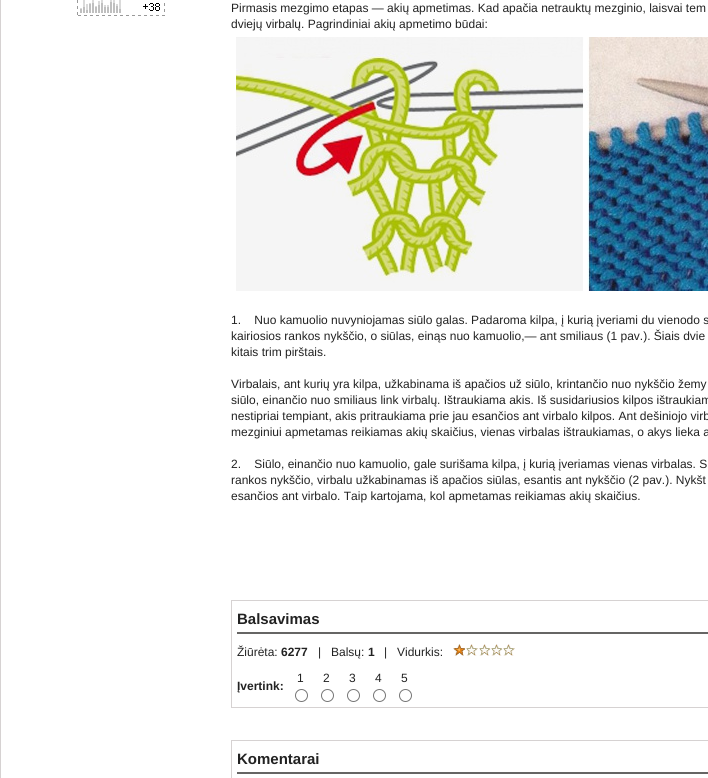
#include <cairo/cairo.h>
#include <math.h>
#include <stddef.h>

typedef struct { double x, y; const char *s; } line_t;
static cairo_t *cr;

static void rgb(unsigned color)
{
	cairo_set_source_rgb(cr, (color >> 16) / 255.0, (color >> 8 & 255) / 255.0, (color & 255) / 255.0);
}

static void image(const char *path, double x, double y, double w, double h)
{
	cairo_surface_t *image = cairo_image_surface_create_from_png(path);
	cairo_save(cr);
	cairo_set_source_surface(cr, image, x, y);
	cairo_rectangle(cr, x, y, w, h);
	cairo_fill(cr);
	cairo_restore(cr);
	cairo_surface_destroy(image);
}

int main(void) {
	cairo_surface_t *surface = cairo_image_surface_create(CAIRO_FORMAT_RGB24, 708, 778);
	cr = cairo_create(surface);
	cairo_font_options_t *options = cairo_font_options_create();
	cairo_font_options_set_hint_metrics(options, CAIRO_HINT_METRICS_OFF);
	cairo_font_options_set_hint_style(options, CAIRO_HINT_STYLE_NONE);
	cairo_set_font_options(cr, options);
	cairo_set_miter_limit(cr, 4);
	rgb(0xffffff);
	cairo_paint(cr);
	rgb(0xd6d2d2);
	cairo_rectangle(cr, 0, 0, 1, 778);
	cairo_fill(cr);
	image("img/1.png", 77, 0, 88, 16);
	image("img/2.png", 236, 37, 472, 254);
	cairo_rectangle(cr, 231.5, 600.5, 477, 107);
	cairo_set_line_width(cr, 1);
	cairo_stroke(cr);
	rgb(0x666564);
	cairo_rectangle(cr, 237, 632, 471, 2);
	cairo_fill(cr);
	image("img/3.png", 453, 644, 62, 12);
	cairo_arc(cr, 301.5, 695.5, 6, 0, 2 * M_PI);
	rgb(0x767676);
	cairo_stroke(cr);
	cairo_arc(cr, 327.5, 695.5, 6, 0, 2 * M_PI);
	cairo_stroke(cr);
	cairo_arc(cr, 353.5, 695.5, 6, 0, 2 * M_PI);
	cairo_stroke(cr);
	cairo_arc(cr, 379.5, 695.5, 6, 0, 2 * M_PI);
	cairo_stroke(cr);
	cairo_arc(cr, 405.5, 695.5, 6, 0, 2 * M_PI);
	cairo_stroke(cr);
	cairo_rectangle(cr, 231.5, 740.5, 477, 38);
	rgb(0xd6d2d2);
	cairo_stroke(cr);
	rgb(0x666564);
	cairo_rectangle(cr, 237, 772, 471, 2);
	cairo_fill(cr);
	cairo_select_font_face(cr, "Liberation Sans", CAIRO_FONT_SLANT_NORMAL, CAIRO_FONT_WEIGHT_NORMAL);
	cairo_set_font_size(cr, 12);
	rgb(0x222222);
	{
		static const line_t items[] = {
			{231, 12, "Pirmasis mezgimo etapas — akių apmetimas. Kad apačia netrauktų mezginio, laisvai tem"},
			{231, 28, "dviejų virbalų. Pagrindiniai akių apmetimo būdai:"},
			{231, 324, "1.    Nuo kamuolio nuvyniojamas siūlo galas. Padaroma kilpa, į kurią įveriami du vienodo s"},
			{231, 340, "kairiosios rankos nykščio, o siūlas, einąs nuo kamuolio,— ant smiliaus (1 pav.). Šiais dvie"},
			{231, 356, "kitais trim pirštais."},
			{231, 388, "Virbalais, ant kurių yra kilpa, užkabinama iš apačios už siūlo, krintančio nuo nykščio žemy"},
			{231, 404, "siūlo, einančio nuo smiliaus link virbalų. Ištraukiama akis. Iš susidariusios kilpos ištraukiam"},
			{231, 420, "nestipriai tempiant, akis pritraukiama prie jau esančios ant virbalo kilpos. Ant dešiniojo virb"},
			{231, 436, "mezginiui apmetamas reikiamas akių skaičius, vienas virbalas ištraukiamas, o akys lieka a"},
			{231, 468, "2.    Siūlo, einančio nuo kamuolio, gale surišama kilpa, į kurią įveriamas vienas virbalas. S"},
			{231, 484, "rankos nykščio, virbalu užkabinamas iš apačios siūlas, esantis ant nykščio (2 pav.). Nykšt"},
			{231, 500, "esančios ant virbalo. Taip kartojama, kol apmetamas reikiamas akių skaičius."},
		};
		for (size_t i = 0; i < sizeof items / sizeof *items; i++) {
			cairo_move_to(cr, items[i].x, items[i].y);
			cairo_show_text(cr, items[i].s);
		}
	}
	cairo_select_font_face(cr, "Liberation Sans", CAIRO_FONT_SLANT_NORMAL, CAIRO_FONT_WEIGHT_BOLD);
	cairo_set_font_size(cr, 15);
	cairo_move_to(cr, 237, 624);
	cairo_show_text(cr, "Balsavimas");
	cairo_select_font_face(cr, "Liberation Sans", CAIRO_FONT_SLANT_NORMAL, CAIRO_FONT_WEIGHT_NORMAL);
	cairo_set_font_size(cr, 12);
	cairo_move_to(cr, 237, 656);
	cairo_show_text(cr, "Žiūrėta:");
	cairo_select_font_face(cr, "Liberation Sans", CAIRO_FONT_SLANT_NORMAL, CAIRO_FONT_WEIGHT_BOLD);
	cairo_move_to(cr, 281, 656);
	cairo_show_text(cr, "6277");
	cairo_select_font_face(cr, "Liberation Sans", CAIRO_FONT_SLANT_NORMAL, CAIRO_FONT_WEIGHT_NORMAL);
	cairo_move_to(cr, 318, 656);
	cairo_show_text(cr, "|");
	cairo_move_to(cr, 331, 656);
	cairo_show_text(cr, "Balsų:");
	cairo_select_font_face(cr, "Liberation Sans", CAIRO_FONT_SLANT_NORMAL, CAIRO_FONT_WEIGHT_BOLD);
	cairo_move_to(cr, 368, 656);
	cairo_show_text(cr, "1");
	cairo_select_font_face(cr, "Liberation Sans", CAIRO_FONT_SLANT_NORMAL, CAIRO_FONT_WEIGHT_NORMAL);
	{
		static const line_t items[] = {
			{384, 656, "|"},
			{397, 656, "Vidurkis:"},
			{297, 682, "1"},
			{323, 682, "2"},
			{349, 682, "3"},
			{375, 682, "4"},
			{401, 682, "5"},
		};
		for (size_t i = 0; i < sizeof items / sizeof *items; i++) {
			cairo_move_to(cr, items[i].x, items[i].y);
			cairo_show_text(cr, items[i].s);
		}
	}
	cairo_select_font_face(cr, "Liberation Sans", CAIRO_FONT_SLANT_NORMAL, CAIRO_FONT_WEIGHT_BOLD);
	cairo_move_to(cr, 237, 690);
	cairo_show_text(cr, "Įvertink:");
	cairo_set_font_size(cr, 15);
	cairo_move_to(cr, 237, 764);
	cairo_show_text(cr, "Komentarai");
	cairo_surface_write_to_png(surface, "page.png");
	cairo_font_options_destroy(options);
	cairo_destroy(cr);
	cairo_surface_destroy(surface);
	return 0;
}
